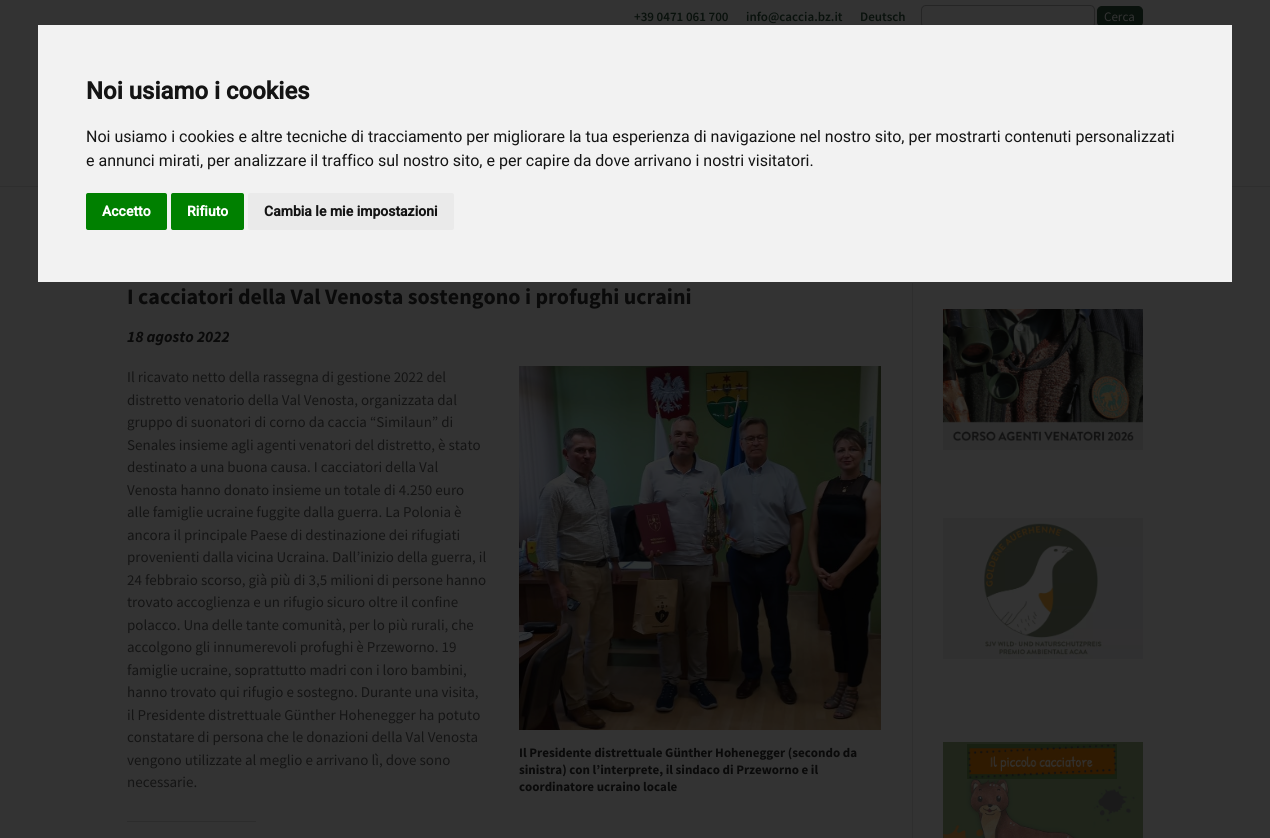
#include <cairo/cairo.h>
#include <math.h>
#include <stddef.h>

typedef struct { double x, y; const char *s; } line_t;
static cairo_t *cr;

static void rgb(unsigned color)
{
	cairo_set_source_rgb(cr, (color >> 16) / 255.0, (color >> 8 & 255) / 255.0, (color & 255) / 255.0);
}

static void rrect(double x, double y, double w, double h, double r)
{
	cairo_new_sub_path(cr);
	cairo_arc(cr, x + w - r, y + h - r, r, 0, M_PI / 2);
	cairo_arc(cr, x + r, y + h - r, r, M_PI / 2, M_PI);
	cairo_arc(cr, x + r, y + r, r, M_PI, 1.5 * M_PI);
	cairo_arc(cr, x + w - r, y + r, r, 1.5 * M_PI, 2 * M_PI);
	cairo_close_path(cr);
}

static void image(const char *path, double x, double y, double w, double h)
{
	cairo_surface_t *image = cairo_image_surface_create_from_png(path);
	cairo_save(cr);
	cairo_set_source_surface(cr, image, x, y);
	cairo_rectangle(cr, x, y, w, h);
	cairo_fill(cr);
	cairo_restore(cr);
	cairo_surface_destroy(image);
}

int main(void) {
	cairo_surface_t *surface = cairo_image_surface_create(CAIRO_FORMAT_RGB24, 1270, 838);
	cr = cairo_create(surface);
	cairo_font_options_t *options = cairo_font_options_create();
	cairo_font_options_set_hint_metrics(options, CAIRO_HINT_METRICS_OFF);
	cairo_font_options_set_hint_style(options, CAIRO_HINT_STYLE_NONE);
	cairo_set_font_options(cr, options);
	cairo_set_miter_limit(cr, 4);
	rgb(0x333333);
	cairo_paint(cr);
	rrect(921.5, 5.5, 173, 22, 4.5);
	rgb(0x252525);
	cairo_set_line_width(cr, 1);
	cairo_stroke(cr);
	rgb(0x09110c);
	rrect(1097.5, 6.5, 45, 20, 4.5);
	cairo_fill_preserve(cr);
	cairo_stroke(cr);
	rgb(0x2e2e2e);
	cairo_rectangle(cr, 0, 186, 1270, 1);
	cairo_fill(cr);
	image("img/1.png", 519, 366, 362, 364);
	rgb(0x2c2c2c);
	cairo_rectangle(cr, 127, 821, 129, 1);
	cairo_fill(cr);
	rgb(0x2e2e2e);
	cairo_rectangle(cr, 912, 283, 1, 555);
	cairo_fill(cr);
	image("img/2.png", 943, 309, 200, 141);
	image("img/3.png", 943, 518, 200, 141);
	image("img/4.png", 943, 742, 200, 96);
	image("img/5.png", 967, 744, 150, 35);
	rgb(0xf2f2f2);
	cairo_rectangle(cr, 38, 25, 1194, 257);
	cairo_fill(cr);
	rgb(0x008000);
	rrect(86, 193, 81, 37, 2);
	cairo_fill(cr);
	rrect(171, 193, 73, 37, 2);
	cairo_fill(cr);
	rgb(0xeaeaea);
	rrect(248, 193, 206, 37, 2);
	cairo_fill(cr);
	cairo_select_font_face(cr, "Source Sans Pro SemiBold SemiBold", CAIRO_FONT_SLANT_NORMAL, CAIRO_FONT_WEIGHT_NORMAL);
	cairo_set_font_size(cr, 13);
	rgb(0x09110c);
	{
		static const line_t items[] = {
			{634, 21, "+39 0471 061 700"},
			{746, 21, "info@caccia.bz.it"},
			{860, 21, "Deutsch"},
		};
		for (size_t i = 0; i < sizeof items / sizeof *items; i++) {
			cairo_move_to(cr, items[i].x, items[i].y);
			cairo_show_text(cr, items[i].s);
		}
	}
	cairo_select_font_face(cr, "Source Sans Pro", CAIRO_FONT_SLANT_NORMAL, CAIRO_FONT_WEIGHT_NORMAL);
	rgb(0x333333);
	cairo_move_to(cr, 1104, 21);
	cairo_show_text(cr, "Cerca");
	cairo_select_font_face(cr, "Source Sans Pro", CAIRO_FONT_SLANT_NORMAL, CAIRO_FONT_WEIGHT_BOLD);
	cairo_set_font_size(cr, 22);
	rgb(0x0a0a0a);
	cairo_move_to(cr, 127, 304);
	cairo_show_text(cr, "I cacciatori della Val Venosta sostengono i profughi ucraini");
	cairo_select_font_face(cr, "Source Sans Pro", CAIRO_FONT_SLANT_ITALIC, CAIRO_FONT_WEIGHT_BOLD);
	cairo_set_font_size(cr, 16);
	cairo_move_to(cr, 127, 342);
	cairo_show_text(cr, "18 agosto 2022");
	cairo_select_font_face(cr, "Source Sans Pro", CAIRO_FONT_SLANT_NORMAL, CAIRO_FONT_WEIGHT_NORMAL);
	cairo_set_font_size(cr, 15);
	rgb(0x141414);
	{
		static const line_t items[] = {
			{127, 382, "Il ricavato netto della rassegna di gestione 2022 del"},
			{127, 405, "distretto venatorio della Val Venosta, organizzata dal"},
			{127, 427, "gruppo di suonatori di corno da caccia “Similaun” di"},
			{127, 450, "Senales insieme agli agenti venatori del distretto, è stato"},
			{127, 472, "destinato a una buona causa. I cacciatori della Val"},
			{127, 495, "Venosta hanno donato insieme un totale di 4.250 euro"},
			{127, 517, "alle famiglie ucraine fuggite dalla guerra. La Polonia è"},
			{127, 540, "ancora il principale Paese di destinazione dei rifugiati"},
			{127, 562, "provenienti dalla vicina Ucraina. Dall’inizio della guerra, il"},
			{127, 585, "24 febbraio scorso, già più di 3,5 milioni di persone hanno"},
			{127, 607, "trovato accoglienza e un rifugio sicuro oltre il confine"},
			{127, 630, "polacco. Una delle tante comunità, per lo più rurali, che"},
			{127, 652, "accolgono gli innumerevoli profughi è Przeworno. 19"},
			{127, 675, "famiglie ucraine, soprattutto madri con i loro bambini,"},
			{127, 697, "hanno trovato qui rifugio e sostegno. Durante una visita,"},
			{127, 720, "il Presidente distrettuale Günther Hohenegger ha potuto"},
			{127, 742, "constatare di persona che le donazioni della Val Venosta"},
			{127, 765, "vengono utilizzate al meglio e arrivano lì, dove sono"},
			{127, 787, "necessarie."},
		};
		for (size_t i = 0; i < sizeof items / sizeof *items; i++) {
			cairo_move_to(cr, items[i].x, items[i].y);
			cairo_show_text(cr, items[i].s);
		}
	}
	cairo_select_font_face(cr, "Source Sans Pro", CAIRO_FONT_SLANT_NORMAL, CAIRO_FONT_WEIGHT_BOLD);
	cairo_set_font_size(cr, 13);
	rgb(0x0a0a0a);
	{
		static const line_t items[] = {
			{519, 757, "Il Presidente distrettuale Günther Hohenegger (secondo da"},
			{519, 774, "sinistra) con l’interprete, il sindaco di Przeworno e il"},
			{519, 791, "coordinatore ucraino locale"},
		};
		for (size_t i = 0; i < sizeof items / sizeof *items; i++) {
			cairo_move_to(cr, items[i].x, items[i].y);
			cairo_show_text(cr, items[i].s);
		}
	}
	cairo_select_font_face(cr, "Roboto", CAIRO_FONT_SLANT_NORMAL, CAIRO_FONT_WEIGHT_BOLD);
	cairo_set_font_size(cr, 24);
	rgb(0x141414);
	cairo_move_to(cr, 86, 99);
	cairo_show_text(cr, "Noi usiamo i cookies");
	cairo_select_font_face(cr, "Roboto", CAIRO_FONT_SLANT_NORMAL, CAIRO_FONT_WEIGHT_NORMAL);
	cairo_set_font_size(cr, 16);
	cairo_move_to(cr, 86, 142);
	cairo_show_text(cr, "Noi usiamo i cookies e altre tecniche di tracciamento per migliorare la tua esperienza di navigazione nel nostro sito, per mostrarti contenuti personalizzati");
	cairo_move_to(cr, 86, 166);
	cairo_show_text(cr, "e annunci mirati, per analizzare il traffico sul nostro sito, e per capire da dove arrivano i nostri visitatori.");
	cairo_select_font_face(cr, "Roboto", CAIRO_FONT_SLANT_NORMAL, CAIRO_FONT_WEIGHT_BOLD);
	cairo_set_font_size(cr, 14);
	rgb(0xffffff);
	cairo_move_to(cr, 102, 216);
	cairo_show_text(cr, "Accetto");
	cairo_move_to(cr, 187, 216);
	cairo_show_text(cr, "Rifiuto");
	rgb(0x141414);
	cairo_move_to(cr, 264, 216);
	cairo_show_text(cr, "Cambia le mie impostazioni");
	cairo_surface_write_to_png(surface, "page.png");
	cairo_font_options_destroy(options);
	cairo_destroy(cr);
	cairo_surface_destroy(surface);
	return 0;
}
